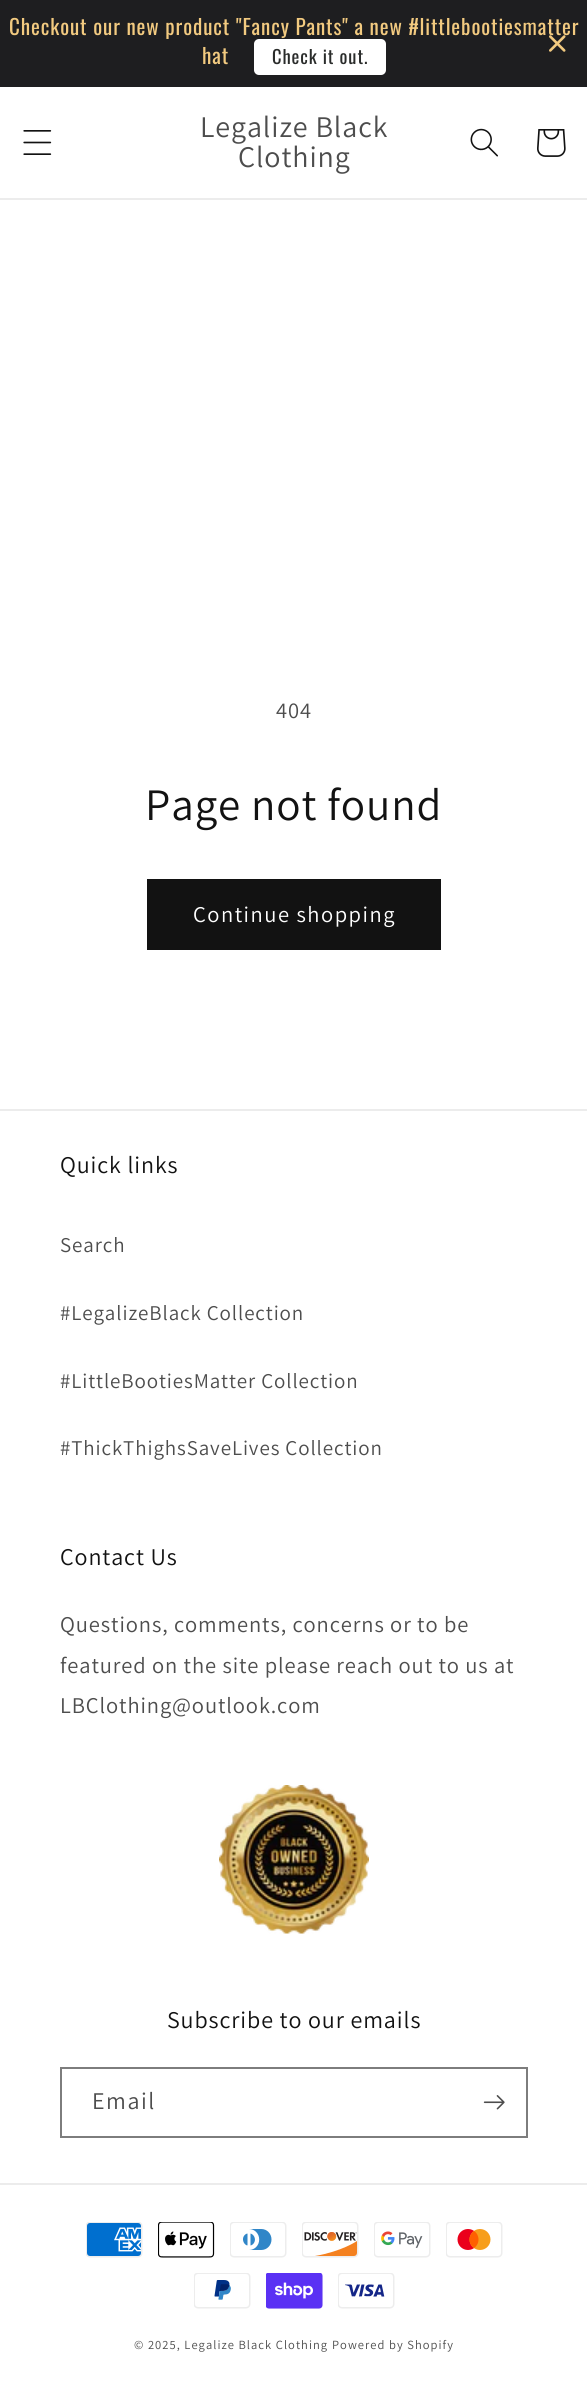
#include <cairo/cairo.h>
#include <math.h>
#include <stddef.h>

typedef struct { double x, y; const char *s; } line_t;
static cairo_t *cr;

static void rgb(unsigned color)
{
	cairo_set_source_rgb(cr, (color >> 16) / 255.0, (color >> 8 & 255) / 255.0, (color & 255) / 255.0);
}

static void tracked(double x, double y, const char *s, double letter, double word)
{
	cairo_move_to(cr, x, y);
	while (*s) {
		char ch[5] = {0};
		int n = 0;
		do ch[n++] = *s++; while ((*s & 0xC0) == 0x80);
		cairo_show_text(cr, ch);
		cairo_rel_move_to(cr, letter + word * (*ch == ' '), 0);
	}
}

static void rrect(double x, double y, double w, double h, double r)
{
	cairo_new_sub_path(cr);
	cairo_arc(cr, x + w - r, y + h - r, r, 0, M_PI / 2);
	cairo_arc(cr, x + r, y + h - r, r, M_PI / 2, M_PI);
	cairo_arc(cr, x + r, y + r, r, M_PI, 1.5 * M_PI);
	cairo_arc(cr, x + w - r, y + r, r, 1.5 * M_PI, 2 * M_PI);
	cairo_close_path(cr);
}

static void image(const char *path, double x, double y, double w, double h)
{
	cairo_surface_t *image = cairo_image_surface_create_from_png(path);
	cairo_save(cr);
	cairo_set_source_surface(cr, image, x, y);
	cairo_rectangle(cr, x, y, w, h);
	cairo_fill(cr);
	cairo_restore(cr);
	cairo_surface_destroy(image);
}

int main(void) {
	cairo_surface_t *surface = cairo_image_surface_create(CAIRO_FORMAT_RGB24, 587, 2397);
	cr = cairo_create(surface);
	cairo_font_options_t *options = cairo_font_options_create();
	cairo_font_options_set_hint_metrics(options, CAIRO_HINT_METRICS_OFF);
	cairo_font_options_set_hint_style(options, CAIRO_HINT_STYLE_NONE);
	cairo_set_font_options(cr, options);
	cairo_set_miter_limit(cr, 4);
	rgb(0xffffff);
	cairo_paint(cr);
	rgb(0x1e1e20);
	cairo_rectangle(cr, 0, 0, 587, 87);
	cairo_fill(cr);
	rgb(0xffffff);
	rrect(254, 39, 132, 36, 5);
	cairo_fill(cr);
	rgb(0xececec);
	cairo_rectangle(cr, 0, 198, 587, 2);
	cairo_fill(cr);
	image("img/2.png", 23, 130, 29, 25);
	image("img/3.png", 470, 128, 28, 29);
	image("img/4.png", 537, 129, 29, 28);
	rgb(0x121212);
	cairo_rectangle(cr, 147, 879, 294, 71);
	cairo_fill(cr);
	rgb(0xececec);
	cairo_rectangle(cr, 0, 1109, 587, 2);
	cairo_fill(cr);
	image("img/5.png", 219, 1785, 150, 149);
	cairo_rectangle(cr, 61, 2068, 466, 69);
	rgb(0x7d7d7d);
	cairo_stroke(cr);
	image("img/6.png", 483, 2095, 22, 15);
	rgb(0xececec);
	cairo_rectangle(cr, 0, 2183, 587, 2);
	cairo_fill(cr);
	image("img/7.png", 86, 2222, 57, 36);
	image("img/8.png", 158, 2222, 57, 36);
	image("img/9.png", 230, 2222, 57, 36);
	image("img/10.png", 302, 2222, 57, 36);
	image("img/11.png", 374, 2222, 57, 36);
	image("img/12.png", 446, 2222, 57, 36);
	image("img/13.png", 194, 2273, 57, 36);
	image("img/14.png", 266, 2273, 57, 36);
	image("img/15.png", 338, 2273, 57, 36);
	cairo_select_font_face(cr, "Oswald", CAIRO_FONT_SLANT_NORMAL, CAIRO_FONT_WEIGHT_NORMAL);
	cairo_set_font_size(cr, 21);
	rgb(0xf2ca80);
	tracked(9, 35, "Checkout our new product \"Fancy Pants\" a new #littlebootiesmatter", 0.9, 0);
	tracked(202, 64, "hat", 0.9, 0);
	cairo_set_font_size(cr, 18.5);
	rgb(0x2a2c2b);
	tracked(272, 64, "Check it out.", 0.9, 0);
	image("img/1.png", 549, 35, 17, 17);
	cairo_select_font_face(cr, "Assistant", CAIRO_FONT_SLANT_NORMAL, CAIRO_FONT_WEIGHT_NORMAL);
	cairo_set_font_size(cr, 30);
	rgb(0x4d4d4d);
	tracked(200, 137, "Legalize Black", 0.9, 0);
	tracked(238, 167, "Clothing", 0.9, 0);
	cairo_set_font_size(cr, 22.5);
	tracked(276, 718, "404", 0.9, 0);
	cairo_set_font_size(cr, 45);
	rgb(0x121212);
	tracked(145, 820, "Page not found", 0.9, 0);
	cairo_set_font_size(cr, 22.5);
	rgb(0xffffff);
	tracked(193, 922, "Continue shopping", 1.5, 0);
	cairo_set_font_size(cr, 24);
	rgb(0x121212);
	tracked(60, 1173, "Quick links", 0.9, 0);
	cairo_set_font_size(cr, 21);
	rgb(0x4d4d4d);
	{
		static const line_t items[] = {
			{60, 1252, "Search"},
			{60, 1320, "#LegalizeBlack Collection"},
			{60, 1388, "#LittleBootiesMatter Collection"},
			{60, 1455, "#ThickThighsSaveLives Collection"},
		};
		for (size_t i = 0; i < sizeof items / sizeof *items; i++) {
			tracked(items[i].x, items[i].y, items[i].s, 0.9, 0);
		}
	}
	cairo_set_font_size(cr, 24);
	rgb(0x121212);
	tracked(60, 1565, "Contact Us", 0.9, 0);
	cairo_set_font_size(cr, 22.5);
	rgb(0x4d4d4d);
	{
		static const line_t items[] = {
			{60, 1632, "Questions, comments, concerns or to be"},
			{60, 1673, "featured on the site please reach out to us at"},
			{60, 1713, "LBClothing@outlook.com"},
		};
		for (size_t i = 0; i < sizeof items / sizeof *items; i++) {
			tracked(items[i].x, items[i].y, items[i].s, 0.9, 0);
		}
	}
	cairo_set_font_size(cr, 24);
	rgb(0x121212);
	tracked(167, 2028, "Subscribe to our emails", 0.9, 0);
	rgb(0x4d4d4d);
	tracked(92, 2109, "Email", 1.5, 0);
	cairo_set_font_size(cr, 12.5);
	tracked(134, 2349, "© 2025, Legalize Black Clothing", 1.05, 0);
	tracked(332, 2349, "Powered by Shopify", 1.05, 0);
	cairo_surface_write_to_png(surface, "page.png");
	cairo_font_options_destroy(options);
	cairo_destroy(cr);
	cairo_surface_destroy(surface);
	return 0;
}
